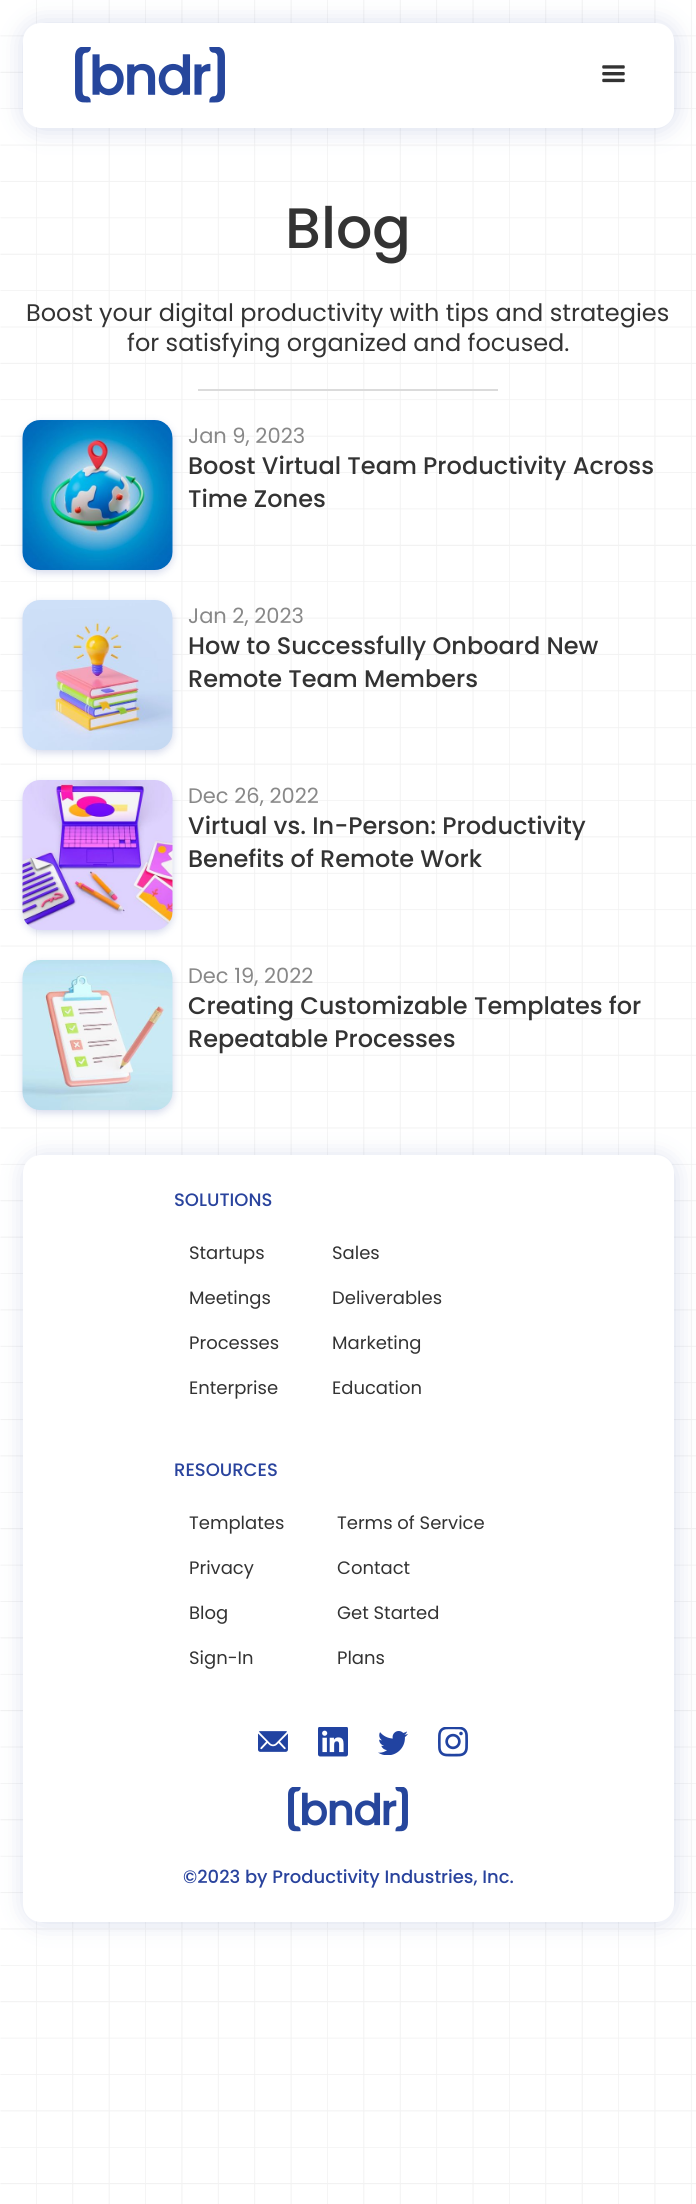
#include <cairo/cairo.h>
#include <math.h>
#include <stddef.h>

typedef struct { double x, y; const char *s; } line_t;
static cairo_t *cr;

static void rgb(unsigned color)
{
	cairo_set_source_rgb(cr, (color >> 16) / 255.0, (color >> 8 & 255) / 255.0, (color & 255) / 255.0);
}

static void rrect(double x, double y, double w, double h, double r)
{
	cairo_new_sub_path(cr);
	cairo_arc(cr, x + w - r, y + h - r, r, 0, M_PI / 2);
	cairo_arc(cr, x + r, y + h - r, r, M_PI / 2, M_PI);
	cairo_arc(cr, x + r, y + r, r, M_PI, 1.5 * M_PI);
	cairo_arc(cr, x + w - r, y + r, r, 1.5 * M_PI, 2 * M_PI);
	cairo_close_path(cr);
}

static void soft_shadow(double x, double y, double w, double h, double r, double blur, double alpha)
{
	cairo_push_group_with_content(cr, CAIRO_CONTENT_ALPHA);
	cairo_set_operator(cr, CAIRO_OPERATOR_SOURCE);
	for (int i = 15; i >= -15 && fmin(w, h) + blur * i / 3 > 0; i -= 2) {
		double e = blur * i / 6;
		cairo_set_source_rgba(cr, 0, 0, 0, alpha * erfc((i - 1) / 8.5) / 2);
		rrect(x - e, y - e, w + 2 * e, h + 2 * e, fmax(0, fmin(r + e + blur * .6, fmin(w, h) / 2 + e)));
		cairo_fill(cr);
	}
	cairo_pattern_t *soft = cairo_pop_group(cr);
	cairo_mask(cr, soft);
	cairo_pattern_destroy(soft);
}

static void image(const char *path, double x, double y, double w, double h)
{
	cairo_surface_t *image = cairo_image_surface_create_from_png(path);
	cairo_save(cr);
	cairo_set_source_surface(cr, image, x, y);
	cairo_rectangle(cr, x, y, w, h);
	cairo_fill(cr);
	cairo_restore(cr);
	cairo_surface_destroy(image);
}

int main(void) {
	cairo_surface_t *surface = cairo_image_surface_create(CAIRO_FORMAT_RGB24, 696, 2204);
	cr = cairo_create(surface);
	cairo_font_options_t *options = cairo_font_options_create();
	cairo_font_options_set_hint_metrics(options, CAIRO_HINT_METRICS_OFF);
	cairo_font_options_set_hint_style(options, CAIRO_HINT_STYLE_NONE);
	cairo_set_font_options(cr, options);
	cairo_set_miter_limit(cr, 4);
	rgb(0xffffff);
	cairo_paint(cr);
	image("img/1.png", 0, 0, 696, 2204);
	rgb(0x29439d);
	soft_shadow(24, 24, 651, 105, 18, 12, 0.2);
	rgb(0xffffff);
	rrect(23, 23, 651, 105, 18);
	cairo_fill(cr);
	image("img/2.png", 75, 47, 150, 56);
	image("img/3.png", 602, 65, 23, 18);
	rgb(0xdbdbdb);
	cairo_rectangle(cr, 198, 389, 300, 2);
	cairo_fill(cr);
	rgb(0x29439d);
	soft_shadow(23, 423, 150, 150, 18, 4, 0.2);
	image("img/4.png", 22, 420, 151, 150);
	soft_shadow(23, 603, 150, 150, 18, 4, 0.2);
	image("img/5.png", 22, 600, 151, 150);
	soft_shadow(23, 783, 150, 150, 18, 4, 0.2);
	image("img/6.png", 22, 780, 151, 150);
	soft_shadow(23, 963, 150, 150, 18, 4, 0.2);
	image("img/7.png", 22, 960, 151, 150);
	soft_shadow(26, 1158, 648, 764, 17, 12, 0.2);
	rgb(0xffffff);
	rrect(23, 1155, 651, 767, 18);
	cairo_fill(cr);
	image("img/8.png", 258, 1731, 30, 21);
	image("img/9.png", 318, 1727, 30, 30);
	image("img/10.png", 378, 1731, 30, 24);
	image("img/11.png", 438, 1727, 30, 30);
	image("img/12.png", 288, 1787, 120, 45);
	cairo_select_font_face(cr, "Poppins Medium", CAIRO_FONT_SLANT_NORMAL, CAIRO_FONT_WEIGHT_NORMAL);
	cairo_set_font_size(cr, 57);
	rgb(0x333333);
	cairo_move_to(cr, 285, 248);
	cairo_show_text(cr, "Blog");
	cairo_select_font_face(cr, "Poppins", CAIRO_FONT_SLANT_NORMAL, CAIRO_FONT_WEIGHT_NORMAL);
	cairo_set_font_size(cr, 24);
	cairo_move_to(cr, 26, 321);
	cairo_show_text(cr, "Boost your digital productivity with tips and strategies");
	cairo_move_to(cr, 127, 351);
	cairo_show_text(cr, "for satisfying organized and focused.");
	cairo_set_font_size(cr, 21);
	rgb(0x888888);
	cairo_move_to(cr, 188, 443);
	cairo_show_text(cr, "Jan 9, 2023");
	cairo_select_font_face(cr, "Poppins Medium", CAIRO_FONT_SLANT_NORMAL, CAIRO_FONT_WEIGHT_NORMAL);
	cairo_set_font_size(cr, 24);
	rgb(0x333333);
	cairo_move_to(cr, 188, 474);
	cairo_show_text(cr, "Boost Virtual Team Productivity Across");
	cairo_move_to(cr, 188, 507);
	cairo_show_text(cr, "Time Zones");
	cairo_select_font_face(cr, "Poppins", CAIRO_FONT_SLANT_NORMAL, CAIRO_FONT_WEIGHT_NORMAL);
	cairo_set_font_size(cr, 21);
	rgb(0x888888);
	cairo_move_to(cr, 188, 623);
	cairo_show_text(cr, "Jan 2, 2023");
	cairo_select_font_face(cr, "Poppins Medium", CAIRO_FONT_SLANT_NORMAL, CAIRO_FONT_WEIGHT_NORMAL);
	cairo_set_font_size(cr, 24);
	rgb(0x333333);
	cairo_move_to(cr, 188, 654);
	cairo_show_text(cr, "How to Successfully Onboard New");
	cairo_move_to(cr, 188, 687);
	cairo_show_text(cr, "Remote Team Members");
	cairo_select_font_face(cr, "Poppins", CAIRO_FONT_SLANT_NORMAL, CAIRO_FONT_WEIGHT_NORMAL);
	cairo_set_font_size(cr, 21);
	rgb(0x888888);
	cairo_move_to(cr, 188, 803);
	cairo_show_text(cr, "Dec 26, 2022");
	cairo_select_font_face(cr, "Poppins Medium", CAIRO_FONT_SLANT_NORMAL, CAIRO_FONT_WEIGHT_NORMAL);
	cairo_set_font_size(cr, 24);
	rgb(0x333333);
	cairo_move_to(cr, 188, 834);
	cairo_show_text(cr, "Virtual vs. In-Person: Productivity");
	cairo_move_to(cr, 188, 867);
	cairo_show_text(cr, "Benefits of Remote Work");
	cairo_select_font_face(cr, "Poppins", CAIRO_FONT_SLANT_NORMAL, CAIRO_FONT_WEIGHT_NORMAL);
	cairo_set_font_size(cr, 21);
	rgb(0x888888);
	cairo_move_to(cr, 188, 983);
	cairo_show_text(cr, "Dec 19, 2022");
	cairo_select_font_face(cr, "Poppins Medium", CAIRO_FONT_SLANT_NORMAL, CAIRO_FONT_WEIGHT_NORMAL);
	cairo_set_font_size(cr, 24);
	rgb(0x333333);
	cairo_move_to(cr, 188, 1014);
	cairo_show_text(cr, "Creating Customizable Templates for");
	cairo_move_to(cr, 188, 1047);
	cairo_show_text(cr, "Repeatable Processes");
	cairo_set_font_size(cr, 18);
	rgb(0x29439d);
	cairo_move_to(cr, 174, 1206);
	cairo_show_text(cr, "SOLUTIONS");
	cairo_select_font_face(cr, "Poppins", CAIRO_FONT_SLANT_NORMAL, CAIRO_FONT_WEIGHT_NORMAL);
	rgb(0x333333);
	{
		static const line_t items[] = {
			{189, 1259, "Startups"},
			{189, 1304, "Meetings"},
			{189, 1349, "Processes"},
			{189, 1394, "Enterprise"},
			{332, 1259, "Sales"},
			{332, 1304, "Deliverables"},
			{332, 1349, "Marketing"},
			{332, 1394, "Education"},
		};
		for (size_t i = 0; i < sizeof items / sizeof *items; i++) {
			cairo_move_to(cr, items[i].x, items[i].y);
			cairo_show_text(cr, items[i].s);
		}
	}
	cairo_select_font_face(cr, "Poppins Medium", CAIRO_FONT_SLANT_NORMAL, CAIRO_FONT_WEIGHT_NORMAL);
	rgb(0x29439d);
	cairo_move_to(cr, 174, 1476);
	cairo_show_text(cr, "RESOURCES");
	cairo_select_font_face(cr, "Poppins", CAIRO_FONT_SLANT_NORMAL, CAIRO_FONT_WEIGHT_NORMAL);
	rgb(0x333333);
	{
		static const line_t items[] = {
			{189, 1529, "Templates"},
			{189, 1574, "Privacy"},
			{189, 1619, "Blog"},
			{189, 1664, "Sign-In"},
			{337, 1529, "Terms of Service"},
			{337, 1574, "Contact"},
			{337, 1619, "Get Started"},
			{337, 1664, "Plans"},
		};
		for (size_t i = 0; i < sizeof items / sizeof *items; i++) {
			cairo_move_to(cr, items[i].x, items[i].y);
			cairo_show_text(cr, items[i].s);
		}
	}
	cairo_select_font_face(cr, "Poppins Medium", CAIRO_FONT_SLANT_NORMAL, CAIRO_FONT_WEIGHT_NORMAL);
	rgb(0x29439d);
	cairo_move_to(cr, 183, 1883);
	cairo_show_text(cr, "©2023 by Productivity Industries, Inc.");
	cairo_surface_write_to_png(surface, "page.png");
	cairo_font_options_destroy(options);
	cairo_destroy(cr);
	cairo_surface_destroy(surface);
	return 0;
}
